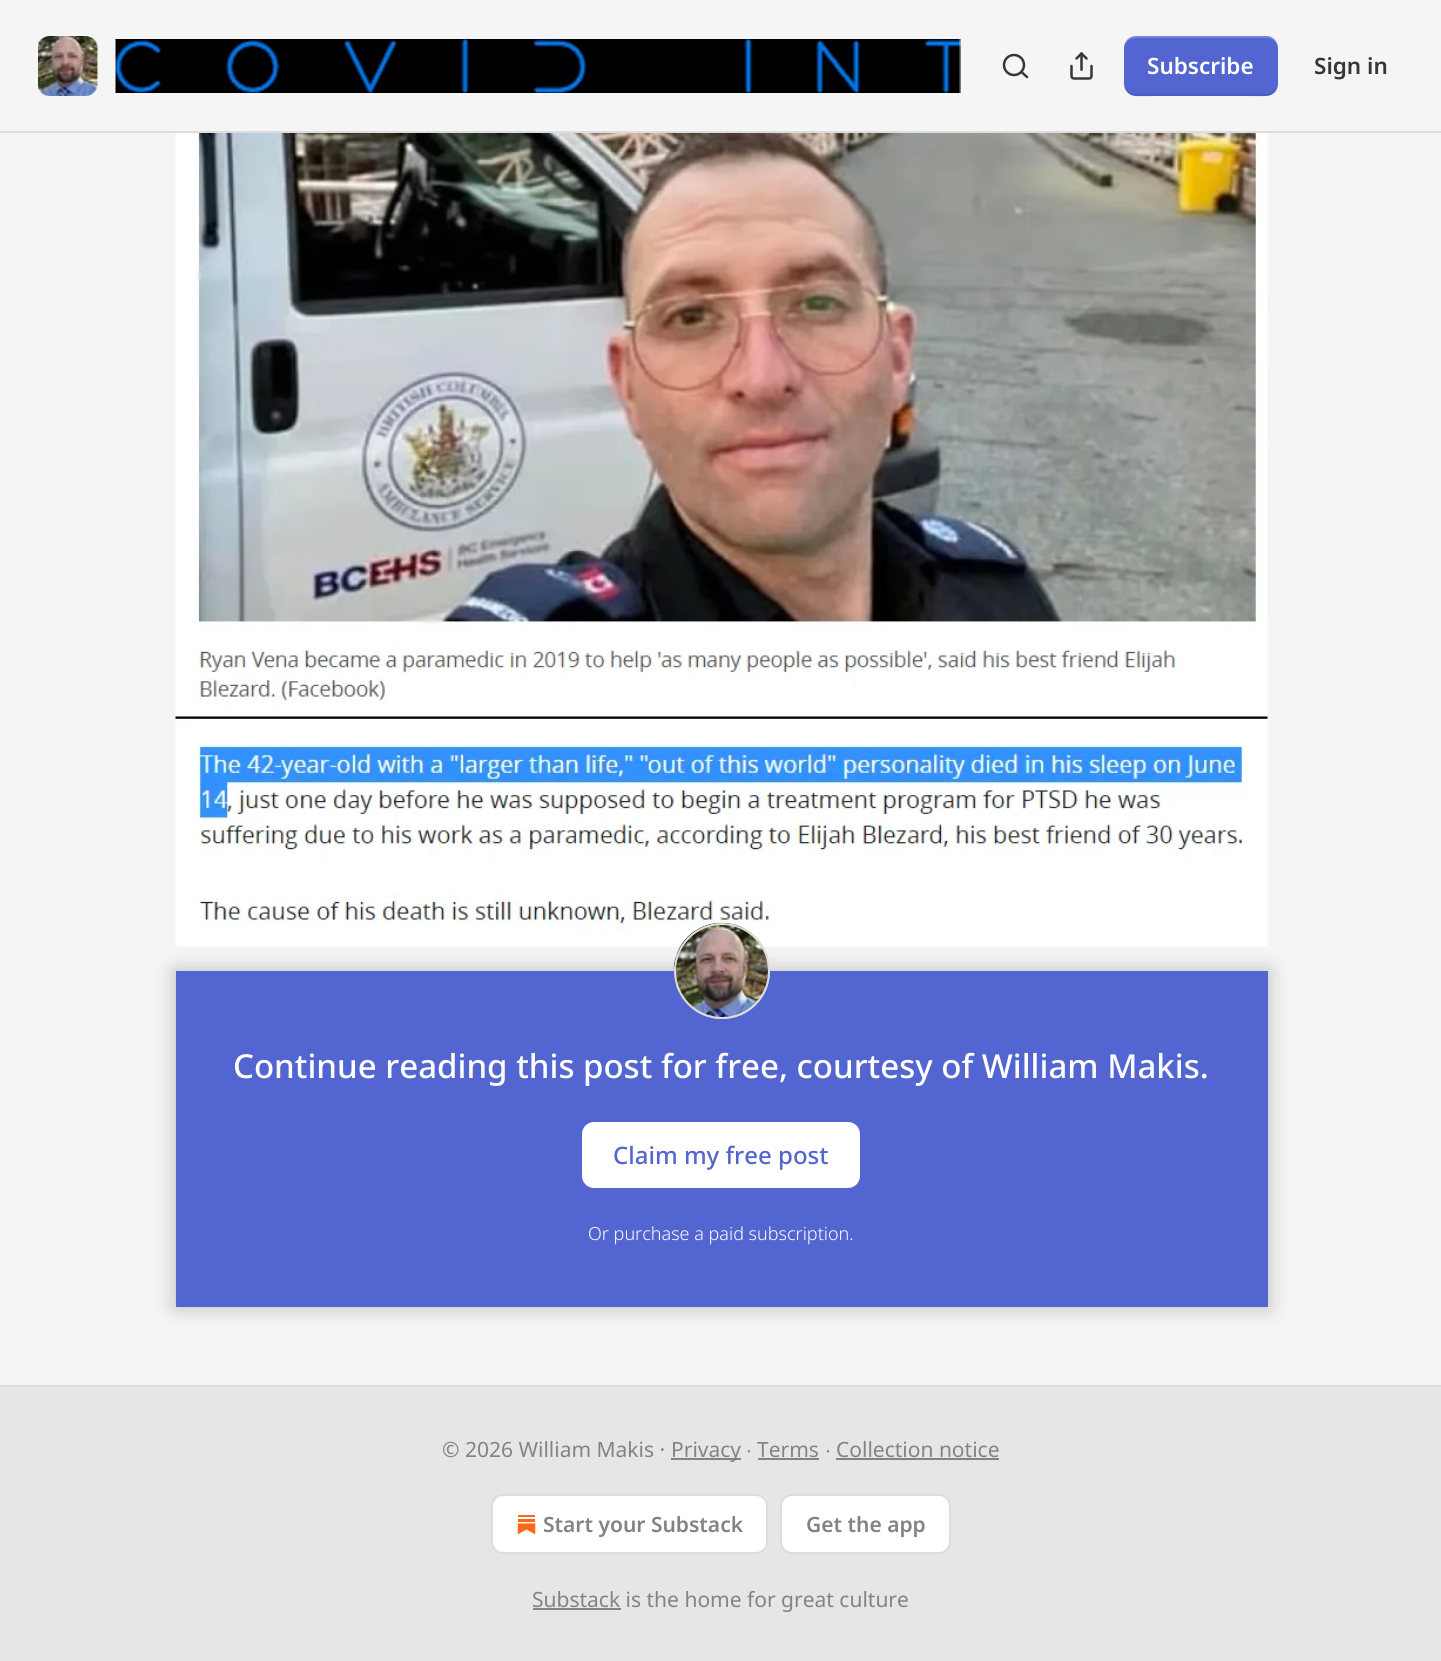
#include <cairo/cairo.h>
#include <math.h>
#include <stddef.h>

typedef struct { double x, y, w, h; unsigned color; } box_t;
static cairo_t *cr;

static void rgb(unsigned color)
{
	cairo_set_source_rgb(cr, (color >> 16) / 255.0, (color >> 8 & 255) / 255.0, (color & 255) / 255.0);
}

static void rrect(double x, double y, double w, double h, double r)
{
	cairo_new_sub_path(cr);
	cairo_arc(cr, x + w - r, y + h - r, r, 0, M_PI / 2);
	cairo_arc(cr, x + r, y + h - r, r, M_PI / 2, M_PI);
	cairo_arc(cr, x + r, y + r, r, M_PI, 1.5 * M_PI);
	cairo_arc(cr, x + w - r, y + r, r, 1.5 * M_PI, 2 * M_PI);
	cairo_close_path(cr);
}

static void soft_shadow(double x, double y, double w, double h, double r, double blur, double alpha)
{
	cairo_push_group_with_content(cr, CAIRO_CONTENT_ALPHA);
	cairo_set_operator(cr, CAIRO_OPERATOR_SOURCE);
	for (int i = 15; i >= -15 && fmin(w, h) + blur * i / 3 > 0; i -= 2) {
		double e = blur * i / 6;
		cairo_set_source_rgba(cr, 0, 0, 0, alpha * erfc((i - 1) / 8.5) / 2);
		rrect(x - e, y - e, w + 2 * e, h + 2 * e, fmax(0, fmin(r + e + blur * .6, fmin(w, h) / 2 + e)));
		cairo_fill(cr);
	}
	cairo_pattern_t *soft = cairo_pop_group(cr);
	cairo_mask(cr, soft);
	cairo_pattern_destroy(soft);
}

static void image(const char *path, double x, double y, double w, double h)
{
	cairo_surface_t *image = cairo_image_surface_create_from_png(path);
	cairo_save(cr);
	cairo_set_source_surface(cr, image, x, y);
	cairo_rectangle(cr, x, y, w, h);
	cairo_fill(cr);
	cairo_restore(cr);
	cairo_surface_destroy(image);
}

int main(void) {
	cairo_surface_t *surface = cairo_image_surface_create(CAIRO_FORMAT_RGB24, 1441, 1661);
	cr = cairo_create(surface);
	cairo_font_options_t *options = cairo_font_options_create();
	cairo_font_options_set_hint_metrics(options, CAIRO_HINT_METRICS_OFF);
	cairo_font_options_set_hint_style(options, CAIRO_HINT_STYLE_NONE);
	cairo_set_font_options(cr, options);
	cairo_set_miter_limit(cr, 4);
	rgb(0xf5f5f5);
	cairo_paint(cr);
	rgb(0xdddddd);
	cairo_rectangle(cr, 0, 131, 1441, 2);
	cairo_fill(cr);
	rgb(0xffffff);
	rrect(38, 36, 60, 60, 12);
	cairo_fill(cr);
	image("img/1.png", 38, 36, 60, 60);
	image("img/2.png", 115, 39, 846, 54);
	cairo_arc(cr, 1014, 65, 10, 0, 2 * M_PI);
	rgb(0x363737);
	cairo_set_line_width(cr, 2.5);
	cairo_stroke(cr);
	cairo_new_path(cr);
	cairo_move_to(cr, 1027, 77);
	cairo_line_to(cr, 1021.5, 72);
	cairo_set_line_cap(cr, CAIRO_LINE_CAP_ROUND);
	cairo_set_line_join(cr, CAIRO_LINE_JOIN_ROUND);
	cairo_stroke(cr);
	image("img/3.png", 1070, 52, 23, 28);
	rgb(0x5365d0);
	rrect(1124, 36, 154, 60, 12);
	cairo_fill(cr);
	cairo_set_source_rgba(cr, 0, 0, 0, 0.1);
	cairo_new_path(cr);
	cairo_move_to(cr, 1124, 82);
	cairo_curve_to(cr, 1124, 101, 1144, 96, 1158, 96);
	cairo_line_to(cr, 1244, 96);
	cairo_curve_to(cr, 1258, 96, 1278, 101, 1278, 82);
	cairo_curve_to(cr, 1278, 89, 1273, 94, 1266, 94);
	cairo_line_to(cr, 1136, 94);
	cairo_curve_to(cr, 1129, 94, 1124, 89, 1124, 82);
	cairo_close_path(cr);
	cairo_fill(cr);
	cairo_set_source_rgba(cr, 1, 1, 1, 0.2);
	cairo_new_path(cr);
	cairo_move_to(cr, 1136, 38);
	cairo_line_to(cr, 1266, 38);
	cairo_curve_to(cr, 1273, 38, 1278, 43, 1278, 50);
	cairo_curve_to(cr, 1278, 31, 1258, 36, 1244, 36);
	cairo_line_to(cr, 1158, 36);
	cairo_curve_to(cr, 1144, 36, 1124, 31, 1124, 50);
	cairo_curve_to(cr, 1124, 43, 1129, 38, 1136, 38);
	cairo_close_path(cr);
	cairo_fill(cr);
	image("img/4.png", 175, 133, 1093, 814);
	rgb(0x5365d0);
	cairo_rectangle(cr, 176, 971, 1092, 336);
	cairo_fill(cr);
	rgb(0xffffff);
	rrect(583, 1123, 276, 64, 11);
	cairo_fill_preserve(cr);
	cairo_set_line_width(cr, 2);
	cairo_set_line_cap(cr, CAIRO_LINE_CAP_BUTT);
	cairo_set_line_join(cr, CAIRO_LINE_JOIN_MITER);
	cairo_stroke(cr);
	cairo_save(cr);
	cairo_set_fill_rule(cr, CAIRO_FILL_RULE_EVEN_ODD);
	cairo_new_path(cr);
	cairo_move_to(cr, 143, 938);
	cairo_line_to(cr, 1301, 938);
	cairo_line_to(cr, 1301, 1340);
	cairo_line_to(cr, 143, 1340);
	cairo_close_path(cr);
	cairo_move_to(cr, 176, 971);
	cairo_line_to(cr, 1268, 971);
	cairo_line_to(cr, 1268, 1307);
	cairo_line_to(cr, 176, 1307);
	cairo_close_path(cr);
	cairo_clip(cr);
	rgb(0x000000);
	soft_shadow(176, 971, 1092, 336, 0, 10.5, 0.25);
	cairo_restore(cr);
	cairo_arc(cr, 722, 971, 47, 0, 2 * M_PI);
	rgb(0xdddddd);
	cairo_stroke(cr);
	image("img/5.png", 673, 922, 97, 97);
	cairo_arc(cr, 722, 971, 47, 0, 2 * M_PI);
	cairo_stroke(cr);
	{
		static const box_t items[] = {
			{0, 1387, 1441, 274, 0xe6e6e6},
			{0, 1385, 1441, 2, 0xdddddd},
			{671, 1458, 70, 2, 0x828383},
			{758, 1458, 61, 2, 0x828383},
			{836, 1458, 163, 2, 0x828383},
		};
		for (size_t i = 0; i < sizeof items / sizeof *items; i++) {
			rgb(items[i].color);
			cairo_rectangle(cr, items[i].x, items[i].y, items[i].w, items[i].h);
			cairo_fill(cr);
		}
	}
	rgb(0xffffff);
	rrect(492, 1495, 275, 58, 11);
	cairo_fill_preserve(cr);
	rgb(0xdddddd);
	cairo_stroke(cr);
	image("img/6.png", 517, 1515, 19, 20);
	rgb(0xffffff);
	rrect(781, 1495, 169, 58, 11);
	cairo_fill_preserve(cr);
	rgb(0xdddddd);
	cairo_stroke(cr);
	rgb(0x828383);
	cairo_rectangle(cr, 533, 1608, 88, 2);
	cairo_fill(cr);
	cairo_select_font_face(cr, "Noto Sans SemiBold", CAIRO_FONT_SLANT_NORMAL, CAIRO_FONT_WEIGHT_NORMAL);
	cairo_set_font_size(cr, 22.5);
	rgb(0xffffff);
	cairo_move_to(cr, 1147, 74);
	cairo_show_text(cr, "Subscribe");
	rgb(0x363737);
	cairo_move_to(cr, 1314, 74);
	cairo_show_text(cr, "Sign in");
	cairo_select_font_face(cr, "Noto Sans Medium", CAIRO_FONT_SLANT_NORMAL, CAIRO_FONT_WEIGHT_NORMAL);
	cairo_set_font_size(cr, 33);
	rgb(0xffffff);
	cairo_move_to(cr, 233, 1078);
	cairo_show_text(cr, "Continue reading this post for free, courtesy of William Makis.");
	cairo_set_font_size(cr, 24);
	rgb(0x5365d0);
	cairo_move_to(cr, 613, 1164);
	cairo_show_text(cr, "Claim my free post");
	cairo_select_font_face(cr, "Noto Sans Light", CAIRO_FONT_SLANT_NORMAL, CAIRO_FONT_WEIGHT_NORMAL);
	cairo_set_font_size(cr, 18);
	rgb(0xffffff);
	cairo_move_to(cr, 588, 1240);
	cairo_show_text(cr, "Or purchase a paid subscription.");
	cairo_select_font_face(cr, "Noto Sans", CAIRO_FONT_SLANT_NORMAL, CAIRO_FONT_WEIGHT_NORMAL);
	cairo_set_font_size(cr, 21);
	rgb(0x828383);
	cairo_move_to(cr, 442, 1457);
	cairo_show_text(cr, "© 2026 William Makis ·");
	cairo_move_to(cr, 671, 1457);
	cairo_show_text(cr, "Privacy");
	cairo_select_font_face(cr, "Liberation Sans", CAIRO_FONT_SLANT_NORMAL, CAIRO_FONT_WEIGHT_NORMAL);
	cairo_move_to(cr, 746, 1457);
	cairo_show_text(cr, "∙");
	cairo_select_font_face(cr, "Noto Sans", CAIRO_FONT_SLANT_NORMAL, CAIRO_FONT_WEIGHT_NORMAL);
	cairo_move_to(cr, 757, 1457);
	cairo_show_text(cr, "Terms");
	cairo_select_font_face(cr, "Liberation Sans", CAIRO_FONT_SLANT_NORMAL, CAIRO_FONT_WEIGHT_NORMAL);
	cairo_move_to(cr, 825, 1457);
	cairo_show_text(cr, "∙");
	cairo_select_font_face(cr, "Noto Sans", CAIRO_FONT_SLANT_NORMAL, CAIRO_FONT_WEIGHT_NORMAL);
	cairo_move_to(cr, 836, 1457);
	cairo_show_text(cr, "Collection notice");
	cairo_select_font_face(cr, "Noto Sans SemiBold", CAIRO_FONT_SLANT_NORMAL, CAIRO_FONT_WEIGHT_NORMAL);
	cairo_move_to(cr, 543, 1532);
	cairo_show_text(cr, "Start your Substack");
	cairo_move_to(cr, 806, 1532);
	cairo_show_text(cr, "Get the app");
	cairo_select_font_face(cr, "Noto Sans", CAIRO_FONT_SLANT_NORMAL, CAIRO_FONT_WEIGHT_NORMAL);
	cairo_move_to(cr, 532, 1607);
	cairo_show_text(cr, "Substack is the home for great culture");
	cairo_surface_write_to_png(surface, "page.png");
	cairo_font_options_destroy(options);
	cairo_destroy(cr);
	cairo_surface_destroy(surface);
	return 0;
}
